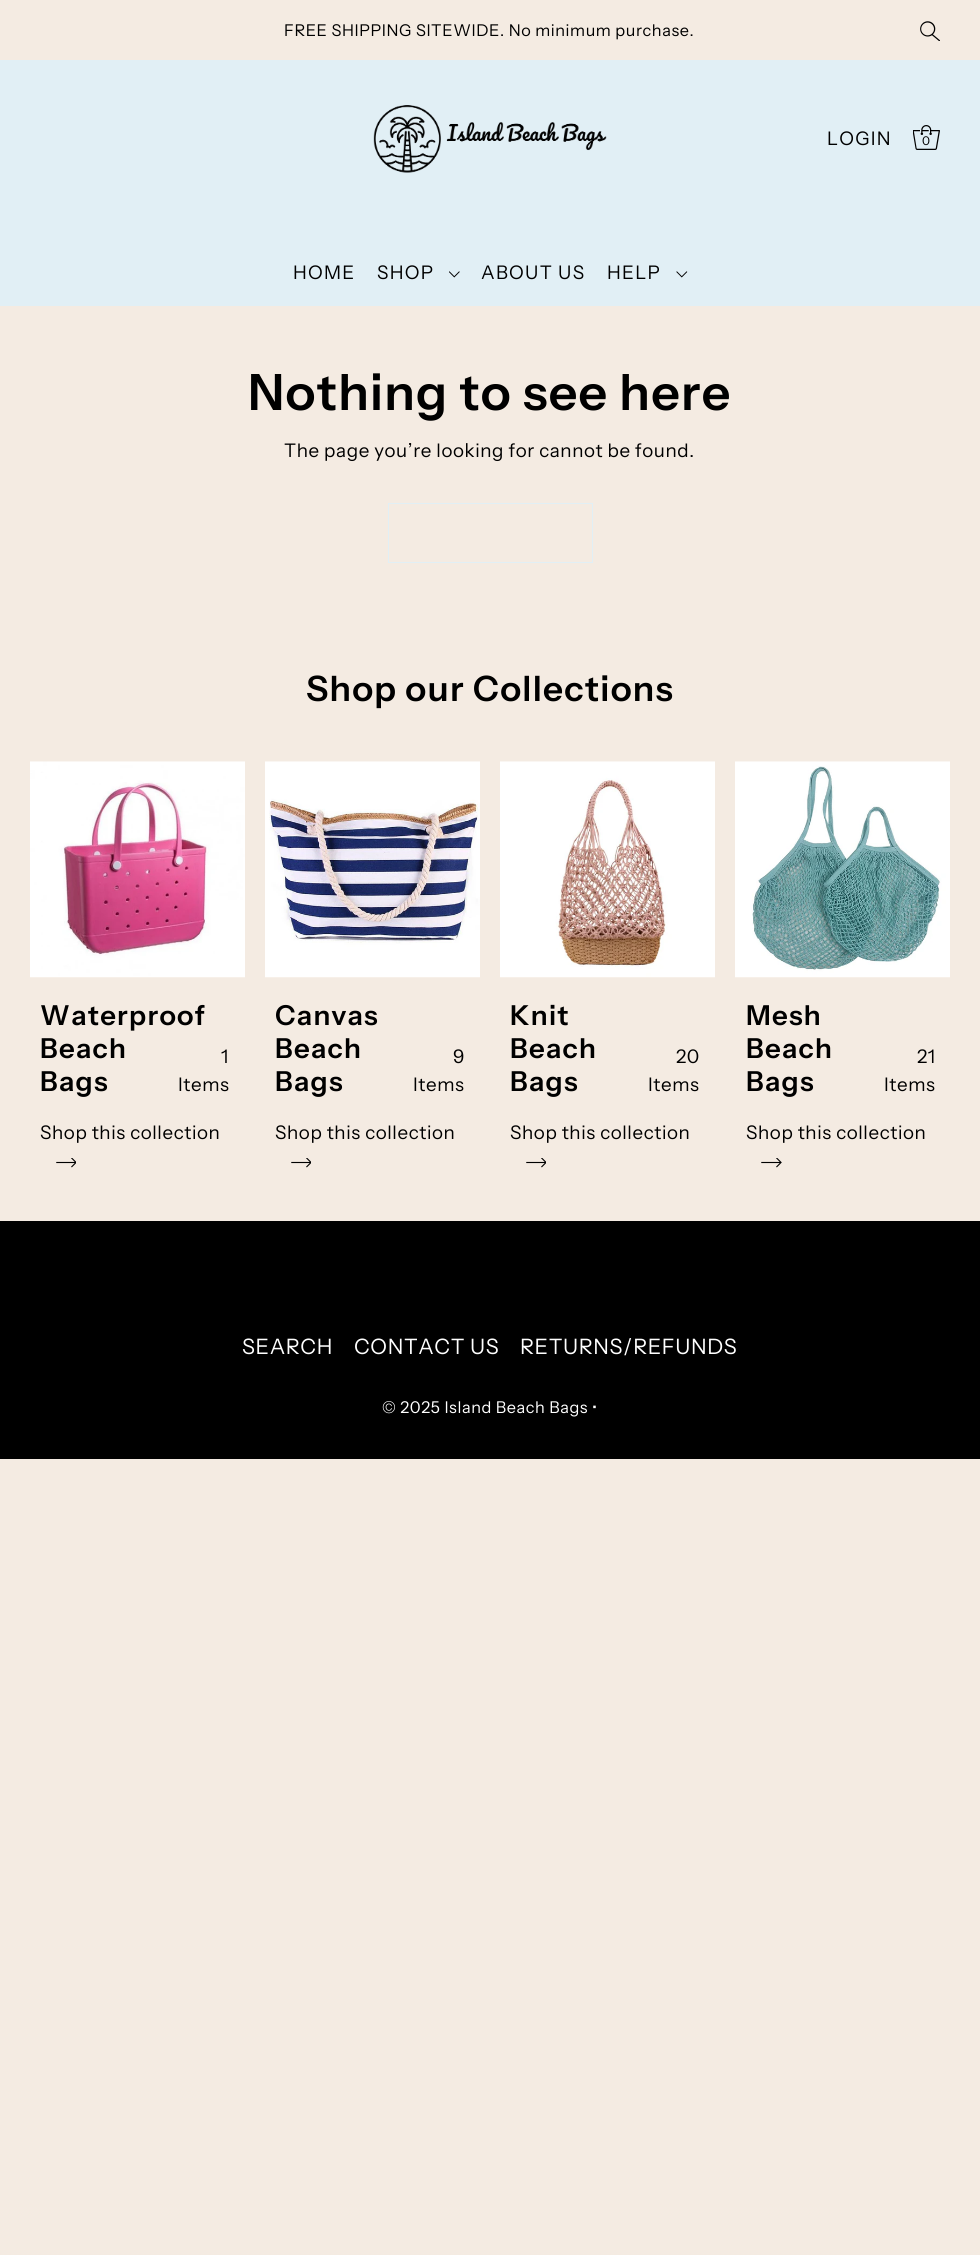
#include <cairo/cairo.h>
#include <math.h>
#include <stddef.h>

typedef struct { double x, y; const char *s; } line_t;
static cairo_t *cr;

static void rgb(unsigned color)
{
	cairo_set_source_rgb(cr, (color >> 16) / 255.0, (color >> 8 & 255) / 255.0, (color & 255) / 255.0);
}

static void tracked(double x, double y, const char *s, double letter, double word)
{
	cairo_move_to(cr, x, y);
	while (*s) {
		char ch[5] = {0};
		int n = 0;
		do ch[n++] = *s++; while ((*s & 0xC0) == 0x80);
		cairo_show_text(cr, ch);
		cairo_rel_move_to(cr, letter + word * (*ch == ' '), 0);
	}
}

static void image(const char *path, double x, double y, double w, double h)
{
	cairo_surface_t *image = cairo_image_surface_create_from_png(path);
	cairo_save(cr);
	cairo_set_source_surface(cr, image, x, y);
	cairo_rectangle(cr, x, y, w, h);
	cairo_fill(cr);
	cairo_restore(cr);
	cairo_surface_destroy(image);
}

int main(void) {
	cairo_surface_t *surface = cairo_image_surface_create(CAIRO_FORMAT_RGB24, 980, 2255);
	cr = cairo_create(surface);
	cairo_font_options_t *options = cairo_font_options_create();
	cairo_font_options_set_hint_metrics(options, CAIRO_HINT_METRICS_OFF);
	cairo_font_options_set_hint_style(options, CAIRO_HINT_STYLE_NONE);
	cairo_set_font_options(cr, options);
	cairo_set_miter_limit(cr, 4);
	rgb(0xf4ebe2);
	cairo_paint(cr);
	image("img/1.png", 920, 21, 20, 20);
	rgb(0xe1eff5);
	cairo_rectangle(cr, 0, 60, 980, 246);
	cairo_fill(cr);
	image("img/2.png", 373, 105, 234, 68);
	image("img/3.png", 913, 125, 27, 25);
	image("img/4.png", 449, 271, 11, 7);
	image("img/5.png", 676, 271, 12, 7);
	cairo_rectangle(cr, 388.5, 503.5, 204, 59);
	cairo_set_line_width(cr, 1);
	cairo_stroke(cr);
	image("img/6.png", 30, 761, 215, 217);
	image("img/7.png", 56, 1158, 20, 10);
	image("img/8.png", 265, 761, 215, 217);
	image("img/7.png", 291, 1158, 20, 10);
	image("img/9.png", 500, 761, 215, 217);
	image("img/7.png", 526, 1158, 20, 10);
	image("img/10.png", 735, 761, 215, 217);
	image("img/11.png", 761, 1158, 21, 10);
	rgb(0x000000);
	cairo_rectangle(cr, 0, 1221, 980, 238);
	cairo_fill(cr);
	cairo_select_font_face(cr, "Instrument Sans", CAIRO_FONT_SLANT_NORMAL, CAIRO_FONT_WEIGHT_NORMAL);
	cairo_set_font_size(cr, 16.25);
	tracked(284, 36, "FREE SHIPPING SITEWIDE. No minimum purchase.", 0.6, 0);
	cairo_set_font_size(cr, 18.75);
	tracked(827, 145, "LOGIN", 1.25, 0);
	cairo_set_font_size(cr, 12);
	tracked(922, 145, "0", 1.25, 0);
	cairo_set_font_size(cr, 18.75);
	{
		static const line_t items[] = {
			{293, 279, "HOME"},
			{377, 279, "SHOP"},
			{481, 279, "ABOUT US"},
			{607, 279, "HELP"},
		};
		for (size_t i = 0; i < sizeof items / sizeof *items; i++) {
			tracked(items[i].x, items[i].y, items[i].s, 1.25, 0);
		}
	}
	cairo_select_font_face(cr, "Instrument Sans SemiBold", CAIRO_FONT_SLANT_NORMAL, CAIRO_FONT_WEIGHT_NORMAL);
	cairo_set_font_size(cr, 50);
	tracked(248, 410, "Nothing to see here", 1.25, 0);
	cairo_select_font_face(cr, "Instrument Sans", CAIRO_FONT_SLANT_NORMAL, CAIRO_FONT_WEIGHT_NORMAL);
	cairo_set_font_size(cr, 18.75);
	tracked(284, 457, "The page you’re looking for cannot be found.", 0.6, 0);
	cairo_select_font_face(cr, "Instrument Sans SemiBold", CAIRO_FONT_SLANT_NORMAL, CAIRO_FONT_WEIGHT_NORMAL);
	cairo_set_font_size(cr, 35);
	tracked(306, 701, "Shop our Collections", 1.25, 0);
	cairo_set_font_size(cr, 27.5);
	{
		static const line_t items[] = {
			{40, 1025, "Waterproof"},
			{40, 1058, "Beach"},
			{40, 1091, "Bags"},
		};
		for (size_t i = 0; i < sizeof items / sizeof *items; i++) {
			tracked(items[i].x, items[i].y, items[i].s, 1.25, 0);
		}
	}
	cairo_select_font_face(cr, "Instrument Sans", CAIRO_FONT_SLANT_NORMAL, CAIRO_FONT_WEIGHT_NORMAL);
	cairo_set_font_size(cr, 18.75);
	{
		static const line_t items[] = {
			{221, 1063, "1"},
			{178, 1091, "Items"},
			{40, 1139, "Shop this collection"},
		};
		for (size_t i = 0; i < sizeof items / sizeof *items; i++) {
			tracked(items[i].x, items[i].y, items[i].s, 0.6, 0);
		}
	}
	cairo_select_font_face(cr, "Instrument Sans SemiBold", CAIRO_FONT_SLANT_NORMAL, CAIRO_FONT_WEIGHT_NORMAL);
	cairo_set_font_size(cr, 27.5);
	{
		static const line_t items[] = {
			{275, 1025, "Canvas"},
			{275, 1058, "Beach"},
			{275, 1091, "Bags"},
		};
		for (size_t i = 0; i < sizeof items / sizeof *items; i++) {
			tracked(items[i].x, items[i].y, items[i].s, 1.25, 0);
		}
	}
	cairo_select_font_face(cr, "Instrument Sans", CAIRO_FONT_SLANT_NORMAL, CAIRO_FONT_WEIGHT_NORMAL);
	cairo_set_font_size(cr, 18.75);
	{
		static const line_t items[] = {
			{453, 1063, "9"},
			{413, 1091, "Items"},
			{275, 1139, "Shop this collection"},
		};
		for (size_t i = 0; i < sizeof items / sizeof *items; i++) {
			tracked(items[i].x, items[i].y, items[i].s, 0.6, 0);
		}
	}
	cairo_select_font_face(cr, "Instrument Sans SemiBold", CAIRO_FONT_SLANT_NORMAL, CAIRO_FONT_WEIGHT_NORMAL);
	cairo_set_font_size(cr, 27.5);
	{
		static const line_t items[] = {
			{510, 1025, "Knit"},
			{510, 1058, "Beach"},
			{510, 1091, "Bags"},
		};
		for (size_t i = 0; i < sizeof items / sizeof *items; i++) {
			tracked(items[i].x, items[i].y, items[i].s, 1.25, 0);
		}
	}
	cairo_select_font_face(cr, "Instrument Sans", CAIRO_FONT_SLANT_NORMAL, CAIRO_FONT_WEIGHT_NORMAL);
	cairo_set_font_size(cr, 18.75);
	{
		static const line_t items[] = {
			{676, 1063, "20"},
			{648, 1091, "Items"},
			{510, 1139, "Shop this collection"},
		};
		for (size_t i = 0; i < sizeof items / sizeof *items; i++) {
			tracked(items[i].x, items[i].y, items[i].s, 0.6, 0);
		}
	}
	cairo_select_font_face(cr, "Instrument Sans SemiBold", CAIRO_FONT_SLANT_NORMAL, CAIRO_FONT_WEIGHT_NORMAL);
	cairo_set_font_size(cr, 27.5);
	{
		static const line_t items[] = {
			{746, 1025, "Mesh"},
			{746, 1058, "Beach"},
			{746, 1091, "Bags"},
		};
		for (size_t i = 0; i < sizeof items / sizeof *items; i++) {
			tracked(items[i].x, items[i].y, items[i].s, 1.25, 0);
		}
	}
	cairo_select_font_face(cr, "Instrument Sans", CAIRO_FONT_SLANT_NORMAL, CAIRO_FONT_WEIGHT_NORMAL);
	cairo_set_font_size(cr, 18.75);
	{
		static const line_t items[] = {
			{917, 1063, "21"},
			{884, 1091, "Items"},
			{746, 1139, "Shop this collection"},
		};
		for (size_t i = 0; i < sizeof items / sizeof *items; i++) {
			tracked(items[i].x, items[i].y, items[i].s, 0.6, 0);
		}
	}
	cairo_set_font_size(cr, 21.25);
	rgb(0xffffff);
	{
		static const line_t items[] = {
			{242, 1354, "SEARCH"},
			{354, 1354, "CONTACT US"},
			{520, 1354, "RETURNS/REFUNDS"},
		};
		for (size_t i = 0; i < sizeof items / sizeof *items; i++) {
			tracked(items[i].x, items[i].y, items[i].s, 0.6, 0);
		}
	}
	cairo_set_font_size(cr, 16.25);
	tracked(382, 1413, "© 2025 Island Beach Bags •", 0.6, 0);
	cairo_surface_write_to_png(surface, "page.png");
	cairo_font_options_destroy(options);
	cairo_destroy(cr);
	cairo_surface_destroy(surface);
	return 0;
}
